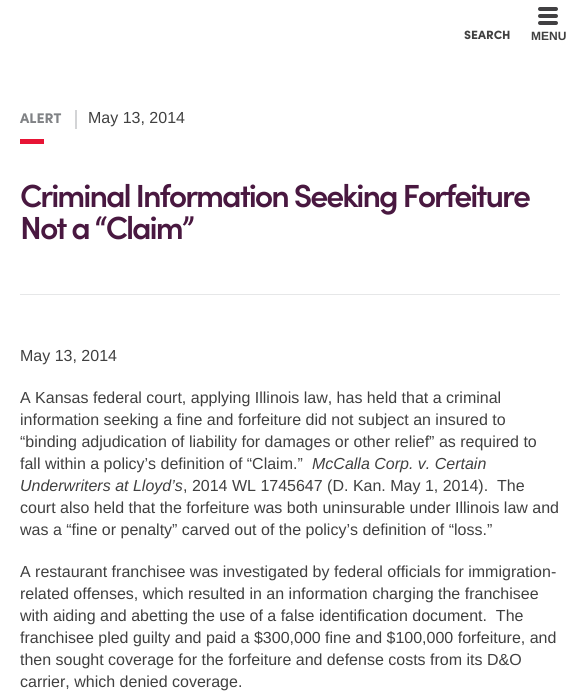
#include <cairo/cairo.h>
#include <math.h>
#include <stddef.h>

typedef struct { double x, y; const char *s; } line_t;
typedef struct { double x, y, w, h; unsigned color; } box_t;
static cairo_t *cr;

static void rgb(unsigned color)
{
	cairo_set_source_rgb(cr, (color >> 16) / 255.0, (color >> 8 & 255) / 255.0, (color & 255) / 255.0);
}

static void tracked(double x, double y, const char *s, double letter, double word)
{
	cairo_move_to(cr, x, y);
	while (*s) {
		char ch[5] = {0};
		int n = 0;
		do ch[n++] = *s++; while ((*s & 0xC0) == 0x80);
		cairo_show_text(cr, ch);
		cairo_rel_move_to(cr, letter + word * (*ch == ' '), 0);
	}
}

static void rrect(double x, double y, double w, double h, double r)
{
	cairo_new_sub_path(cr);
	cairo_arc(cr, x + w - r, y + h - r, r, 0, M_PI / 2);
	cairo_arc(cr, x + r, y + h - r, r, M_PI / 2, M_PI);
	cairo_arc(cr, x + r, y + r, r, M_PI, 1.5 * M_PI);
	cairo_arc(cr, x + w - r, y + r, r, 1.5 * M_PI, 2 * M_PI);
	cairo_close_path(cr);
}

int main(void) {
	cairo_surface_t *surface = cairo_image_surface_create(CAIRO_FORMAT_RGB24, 580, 700);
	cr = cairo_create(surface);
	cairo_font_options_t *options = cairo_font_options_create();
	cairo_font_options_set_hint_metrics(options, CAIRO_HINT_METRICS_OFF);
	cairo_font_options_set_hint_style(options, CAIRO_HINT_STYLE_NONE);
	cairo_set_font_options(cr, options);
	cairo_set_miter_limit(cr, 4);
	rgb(0xffffff);
	cairo_paint(cr);
	rgb(0x414042);
	rrect(538, 7, 20, 4, 2);
	cairo_fill(cr);
	rrect(538, 14, 20, 4, 2);
	cairo_fill(cr);
	rrect(538, 21, 20, 4, 2);
	cairo_fill(cr);
	{
		static const box_t items[] = {
			{20, 294, 540, 1, 0xe6e7e8},
			{75, 110, 2, 19, 0xd3d4d6},
			{20, 139, 24, 5, 0xe71435},
		};
		for (size_t i = 0; i < sizeof items / sizeof *items; i++) {
			rgb(items[i].color);
			cairo_rectangle(cr, items[i].x, items[i].y, items[i].w, items[i].h);
			cairo_fill(cr);
		}
	}
	cairo_select_font_face(cr, "Sofia Black", CAIRO_FONT_SLANT_NORMAL, CAIRO_FONT_WEIGHT_NORMAL);
	cairo_set_font_size(cr, 12);
	rgb(0x404040);
	cairo_move_to(cr, 464, 39);
	cairo_show_text(cr, "SEARCH");
	cairo_select_font_face(cr, "Liberation Sans", CAIRO_FONT_SLANT_NORMAL, CAIRO_FONT_WEIGHT_BOLD);
	cairo_move_to(cr, 531, 40);
	cairo_show_text(cr, "MENU");
	cairo_select_font_face(cr, "Sofia Black", CAIRO_FONT_SLANT_NORMAL, CAIRO_FONT_WEIGHT_NORMAL);
	cairo_set_font_size(cr, 14);
	rgb(0x808285);
	cairo_move_to(cr, 20, 123);
	cairo_show_text(cr, "ALERT");
	cairo_select_font_face(cr, "Liberation Sans", CAIRO_FONT_SLANT_NORMAL, CAIRO_FONT_WEIGHT_NORMAL);
	cairo_set_font_size(cr, 16);
	rgb(0x404040);
	cairo_move_to(cr, 88, 123);
	cairo_show_text(cr, "May 13, 2014");
	cairo_select_font_face(cr, "Sofia SemiBold", CAIRO_FONT_SLANT_NORMAL, CAIRO_FONT_WEIGHT_NORMAL);
	cairo_set_font_size(cr, 32);
	rgb(0x491840);
	tracked(20, 207, "Criminal Information Seeking Forfeiture", -2, 0);
	tracked(20, 239, "Not a “Claim”", -2, 0);
	cairo_select_font_face(cr, "Liberation Sans", CAIRO_FONT_SLANT_NORMAL, CAIRO_FONT_WEIGHT_NORMAL);
	cairo_set_font_size(cr, 16);
	rgb(0x404040);
	{
		static const line_t items[] = {
			{20, 361, "May 13, 2014"},
			{20, 403, "A Kansas federal court, applying Illinois law, has held that a criminal"},
			{20, 425, "information seeking a fine and forfeiture did not subject an insured to"},
			{20, 447, "“binding adjudication of liability for damages or other relief” as required to"},
			{20, 469, "fall within a policy’s definition of “Claim.”"},
		};
		for (size_t i = 0; i < sizeof items / sizeof *items; i++) {
			cairo_move_to(cr, items[i].x, items[i].y);
			cairo_show_text(cr, items[i].s);
		}
	}
	cairo_select_font_face(cr, "Liberation Sans", CAIRO_FONT_SLANT_ITALIC, CAIRO_FONT_WEIGHT_NORMAL);
	cairo_move_to(cr, 312, 469);
	cairo_show_text(cr, "McCalla Corp. v. Certain");
	cairo_move_to(cr, 20, 491);
	cairo_show_text(cr, "Underwriters at Lloyd’s");
	cairo_select_font_face(cr, "Liberation Sans", CAIRO_FONT_SLANT_NORMAL, CAIRO_FONT_WEIGHT_NORMAL);
	{
		static const line_t items[] = {
			{183, 491, ", 2014 WL 1745647 (D. Kan. May 1, 2014).  The"},
			{20, 513, "court also held that the forfeiture was both uninsurable under Illinois law and"},
			{20, 535, "was a “fine or penalty” carved out of the policy’s definition of “loss.”"},
			{20, 577, "A restaurant franchisee was investigated by federal officials for immigration-"},
			{20, 599, "related offenses, which resulted in an information charging the franchisee"},
			{20, 621, "with aiding and abetting the use of a false identification document.  The"},
			{20, 643, "franchisee pled guilty and paid a $300,000 fine and $100,000 forfeiture, and"},
			{20, 665, "then sought coverage for the forfeiture and defense costs from its D&O"},
			{20, 687, "carrier, which denied coverage."},
		};
		for (size_t i = 0; i < sizeof items / sizeof *items; i++) {
			cairo_move_to(cr, items[i].x, items[i].y);
			cairo_show_text(cr, items[i].s);
		}
	}
	cairo_surface_write_to_png(surface, "page.png");
	cairo_font_options_destroy(options);
	cairo_destroy(cr);
	cairo_surface_destroy(surface);
	return 0;
}
